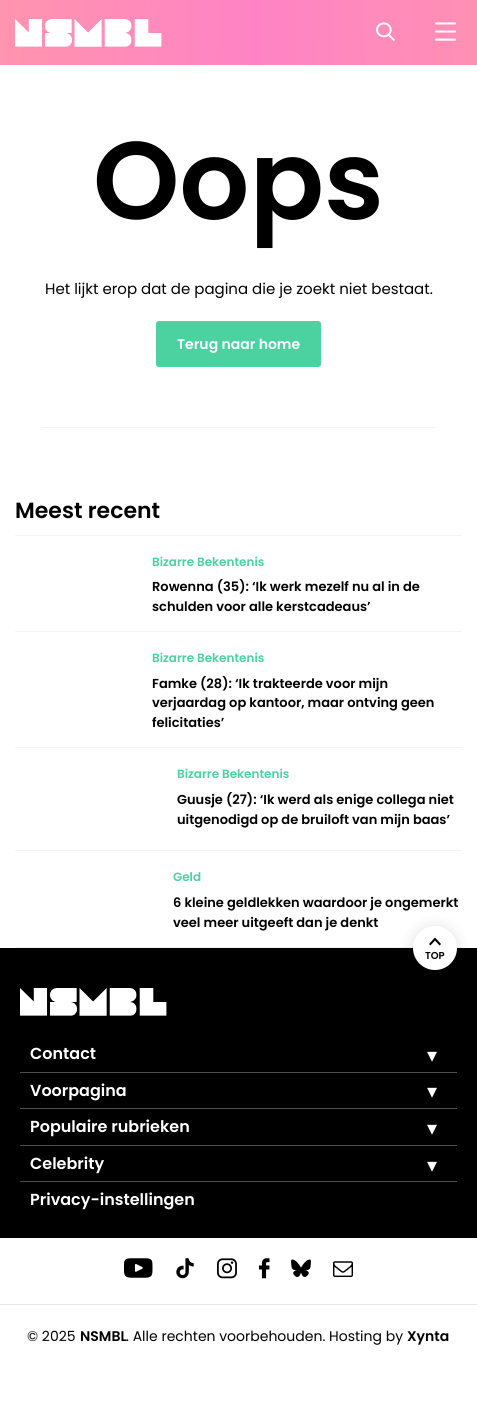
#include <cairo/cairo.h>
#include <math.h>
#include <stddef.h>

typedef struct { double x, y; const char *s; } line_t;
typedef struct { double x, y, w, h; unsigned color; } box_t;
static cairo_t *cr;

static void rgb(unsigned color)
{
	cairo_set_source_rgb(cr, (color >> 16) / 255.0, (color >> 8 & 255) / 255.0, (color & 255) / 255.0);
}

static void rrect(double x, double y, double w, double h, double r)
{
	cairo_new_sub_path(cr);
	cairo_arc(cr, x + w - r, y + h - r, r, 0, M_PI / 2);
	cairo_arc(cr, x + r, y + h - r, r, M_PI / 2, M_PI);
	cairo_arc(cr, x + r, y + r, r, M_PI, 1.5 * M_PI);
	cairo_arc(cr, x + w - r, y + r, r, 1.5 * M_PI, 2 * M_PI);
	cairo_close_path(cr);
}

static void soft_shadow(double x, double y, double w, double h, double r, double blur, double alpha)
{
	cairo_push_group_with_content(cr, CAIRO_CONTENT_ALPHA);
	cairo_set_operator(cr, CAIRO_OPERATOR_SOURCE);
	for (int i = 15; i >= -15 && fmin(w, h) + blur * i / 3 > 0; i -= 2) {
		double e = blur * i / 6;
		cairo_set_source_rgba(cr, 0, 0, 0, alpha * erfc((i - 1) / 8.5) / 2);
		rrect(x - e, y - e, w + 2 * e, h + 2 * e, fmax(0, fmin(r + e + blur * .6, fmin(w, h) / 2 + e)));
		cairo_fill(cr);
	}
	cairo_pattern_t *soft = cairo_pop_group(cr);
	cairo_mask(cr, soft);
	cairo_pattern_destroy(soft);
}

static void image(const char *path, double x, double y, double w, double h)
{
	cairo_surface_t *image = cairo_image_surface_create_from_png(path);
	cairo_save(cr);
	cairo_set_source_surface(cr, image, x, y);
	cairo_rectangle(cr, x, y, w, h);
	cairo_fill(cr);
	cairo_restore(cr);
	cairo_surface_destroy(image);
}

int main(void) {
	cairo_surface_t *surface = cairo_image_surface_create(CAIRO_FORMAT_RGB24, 477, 1418);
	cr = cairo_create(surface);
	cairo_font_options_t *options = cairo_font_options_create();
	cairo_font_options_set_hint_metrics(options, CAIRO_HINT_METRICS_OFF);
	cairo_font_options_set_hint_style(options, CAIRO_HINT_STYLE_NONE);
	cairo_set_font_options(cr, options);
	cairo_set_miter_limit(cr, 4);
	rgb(0xffffff);
	cairo_paint(cr);
	image("img/1.png", 0, 0, 477, 65);
	image("img/2.png", 15, 19, 147, 28);
	image("img/3.png", 376, 22, 19, 19);
	image("img/4.png", 435, 22, 21, 19);
	rgb(0x4cd1a0);
	rrect(156.5, 321.5, 164, 45, 2.5);
	cairo_fill_preserve(cr);
	cairo_set_line_width(cr, 1);
	cairo_stroke(cr);
	{
		static const box_t items[] = {
			{42, 427, 393, 1, 0xf4f4f4},
			{15, 535, 447, 1, 0xf4f4f4},
			{15, 631, 447, 1, 0xf4f4f4},
			{15, 747, 447, 1, 0xf4f4f4},
			{15, 850, 447, 1, 0xf4f4f4},
			{15, 947, 447, 1, 0xf4f4f4},
			{0, 948, 477, 290, 0x000000},
		};
		for (size_t i = 0; i < sizeof items / sizeof *items; i++) {
			rgb(items[i].color);
			cairo_rectangle(cr, items[i].x, items[i].y, items[i].w, items[i].h);
			cairo_fill(cr);
		}
	}
	rgb(0x000000);
	soft_shadow(413, 928, 44, 44, 22, 7.5, 0.13);
	rgb(0xffffff);
	cairo_arc(cr, 435, 948, 22, 0, 2 * M_PI);
	cairo_fill(cr);
	image("img/5.png", 429, 937, 12, 9);
	image("img/6.png", 20, 988, 147, 28);
	{
		static const box_t items[] = {
			{20, 1072, 437, 1, 0x4d4d4d},
			{20, 1108, 437, 1, 0x4d4d4d},
			{20, 1145, 437, 1, 0x4d4d4d},
			{20, 1181, 437, 1, 0x4d4d4d},
			{0, 1304, 477, 1, 0xe8e8e8},
		};
		for (size_t i = 0; i < sizeof items / sizeof *items; i++) {
			rgb(items[i].color);
			cairo_rectangle(cr, items[i].x, items[i].y, items[i].w, items[i].h);
			cairo_fill(cr);
		}
	}
	image("img/7.png", 124, 1258, 29, 20);
	image("img/8.png", 176, 1258, 18, 21);
	image("img/9.png", 217, 1258, 20, 21);
	image("img/10.png", 259, 1258, 11, 21);
	image("img/11.png", 291, 1259, 20, 18);
	image("img/12.png", 333, 1261, 20, 16);
	cairo_select_font_face(cr, "Poppins SemiBold", CAIRO_FONT_SLANT_NORMAL, CAIRO_FONT_WEIGHT_NORMAL);
	cairo_set_font_size(cr, 110);
	rgb(0x000000);
	cairo_move_to(cr, 93, 219);
	cairo_show_text(cr, "Oops");
	cairo_select_font_face(cr, "Poppins", CAIRO_FONT_SLANT_NORMAL, CAIRO_FONT_WEIGHT_NORMAL);
	cairo_set_font_size(cr, 15);
	cairo_move_to(cr, 45, 294);
	cairo_show_text(cr, "Het lijkt erop dat de pagina die je zoekt niet bestaat.");
	cairo_select_font_face(cr, "Poppins SemiBold", CAIRO_FONT_SLANT_NORMAL, CAIRO_FONT_WEIGHT_NORMAL);
	cairo_set_font_size(cr, 14);
	rgb(0xffffff);
	cairo_move_to(cr, 177, 349);
	cairo_show_text(cr, "Terug naar home");
	cairo_set_font_size(cr, 22);
	rgb(0x000000);
	cairo_move_to(cr, 15, 518);
	cairo_show_text(cr, "Meest recent");
	cairo_set_font_size(cr, 12);
	rgb(0x4cd1a0);
	cairo_move_to(cr, 152, 566);
	cairo_show_text(cr, "Bizarre Bekentenis");
	cairo_set_font_size(cr, 13);
	rgb(0x000000);
	cairo_move_to(cr, 152, 591);
	cairo_show_text(cr, "Rowenna (35): ‘Ik werk mezelf nu al in de");
	cairo_move_to(cr, 152, 611);
	cairo_show_text(cr, "schulden voor alle kerstcadeaus’");
	cairo_set_font_size(cr, 12);
	rgb(0x4cd1a0);
	cairo_move_to(cr, 152, 662);
	cairo_show_text(cr, "Bizarre Bekentenis");
	cairo_set_font_size(cr, 13);
	rgb(0x000000);
	{
		static const line_t items[] = {
			{152, 688, "Famke (28): ‘Ik trakteerde voor mijn"},
			{152, 707, "verjaardag op kantoor, maar ontving geen"},
			{152, 727, "felicitaties’"},
		};
		for (size_t i = 0; i < sizeof items / sizeof *items; i++) {
			cairo_move_to(cr, items[i].x, items[i].y);
			cairo_show_text(cr, items[i].s);
		}
	}
	cairo_set_font_size(cr, 12);
	rgb(0x4cd1a0);
	cairo_move_to(cr, 177, 778);
	cairo_show_text(cr, "Bizarre Bekentenis");
	cairo_set_font_size(cr, 13);
	rgb(0x000000);
	cairo_move_to(cr, 177, 804);
	cairo_show_text(cr, "Guusje (27): ‘Ik werd als enige collega niet");
	cairo_move_to(cr, 177, 824);
	cairo_show_text(cr, "uitgenodigd op de bruiloft van mijn baas’");
	cairo_set_font_size(cr, 12);
	rgb(0x4cd1a0);
	cairo_move_to(cr, 173, 881);
	cairo_show_text(cr, "Geld");
	cairo_set_font_size(cr, 13);
	rgb(0x000000);
	cairo_move_to(cr, 173, 907);
	cairo_show_text(cr, "6 kleine geldlekken waardoor je ongemerkt");
	cairo_move_to(cr, 173, 927);
	cairo_show_text(cr, "veel meer uitgeeft dan je denkt");
	cairo_set_font_size(cr, 10);
	cairo_move_to(cr, 425, 959);
	cairo_show_text(cr, "TOP");
	cairo_set_font_size(cr, 16);
	rgb(0xffffff);
	cairo_move_to(cr, 30, 1059);
	cairo_show_text(cr, "Contact");
	cairo_select_font_face(cr, "DejaVu Sans", CAIRO_FONT_SLANT_NORMAL, CAIRO_FONT_WEIGHT_NORMAL);
	cairo_set_font_size(cr, 20);
	cairo_move_to(cr, 427, 1062);
	cairo_show_text(cr, "▾");
	cairo_select_font_face(cr, "Poppins SemiBold", CAIRO_FONT_SLANT_NORMAL, CAIRO_FONT_WEIGHT_NORMAL);
	cairo_set_font_size(cr, 16);
	cairo_move_to(cr, 30, 1096);
	cairo_show_text(cr, "Voorpagina");
	cairo_select_font_face(cr, "DejaVu Sans", CAIRO_FONT_SLANT_NORMAL, CAIRO_FONT_WEIGHT_NORMAL);
	cairo_set_font_size(cr, 20);
	cairo_move_to(cr, 427, 1098);
	cairo_show_text(cr, "▾");
	cairo_select_font_face(cr, "Poppins SemiBold", CAIRO_FONT_SLANT_NORMAL, CAIRO_FONT_WEIGHT_NORMAL);
	cairo_set_font_size(cr, 16);
	cairo_move_to(cr, 30, 1132);
	cairo_show_text(cr, "Populaire rubrieken");
	cairo_select_font_face(cr, "DejaVu Sans", CAIRO_FONT_SLANT_NORMAL, CAIRO_FONT_WEIGHT_NORMAL);
	cairo_set_font_size(cr, 20);
	cairo_move_to(cr, 427, 1135);
	cairo_show_text(cr, "▾");
	cairo_select_font_face(cr, "Poppins SemiBold", CAIRO_FONT_SLANT_NORMAL, CAIRO_FONT_WEIGHT_NORMAL);
	cairo_set_font_size(cr, 16);
	cairo_move_to(cr, 30, 1169);
	cairo_show_text(cr, "Celebrity");
	cairo_select_font_face(cr, "DejaVu Sans", CAIRO_FONT_SLANT_NORMAL, CAIRO_FONT_WEIGHT_NORMAL);
	cairo_set_font_size(cr, 20);
	cairo_move_to(cr, 427, 1172);
	cairo_show_text(cr, "▾");
	cairo_select_font_face(cr, "Poppins SemiBold", CAIRO_FONT_SLANT_NORMAL, CAIRO_FONT_WEIGHT_NORMAL);
	cairo_set_font_size(cr, 16);
	cairo_move_to(cr, 30, 1205);
	cairo_show_text(cr, "Privacy-instellingen");
	cairo_select_font_face(cr, "Poppins", CAIRO_FONT_SLANT_NORMAL, CAIRO_FONT_WEIGHT_NORMAL);
	cairo_set_font_size(cr, 14);
	rgb(0x000000);
	cairo_move_to(cr, 27, 1341);
	cairo_show_text(cr, "© 2025");
	cairo_select_font_face(cr, "Poppins SemiBold", CAIRO_FONT_SLANT_NORMAL, CAIRO_FONT_WEIGHT_NORMAL);
	cairo_move_to(cr, 80, 1341);
	cairo_show_text(cr, "NSMBL");
	cairo_select_font_face(cr, "Poppins", CAIRO_FONT_SLANT_NORMAL, CAIRO_FONT_WEIGHT_NORMAL);
	cairo_move_to(cr, 126, 1341);
	cairo_show_text(cr, ". Alle rechten voorbehouden. Hosting by");
	cairo_select_font_face(cr, "Poppins SemiBold", CAIRO_FONT_SLANT_NORMAL, CAIRO_FONT_WEIGHT_NORMAL);
	cairo_move_to(cr, 407, 1341);
	cairo_show_text(cr, "Xynta");
	cairo_surface_write_to_png(surface, "page.png");
	cairo_font_options_destroy(options);
	cairo_destroy(cr);
	cairo_surface_destroy(surface);
	return 0;
}
